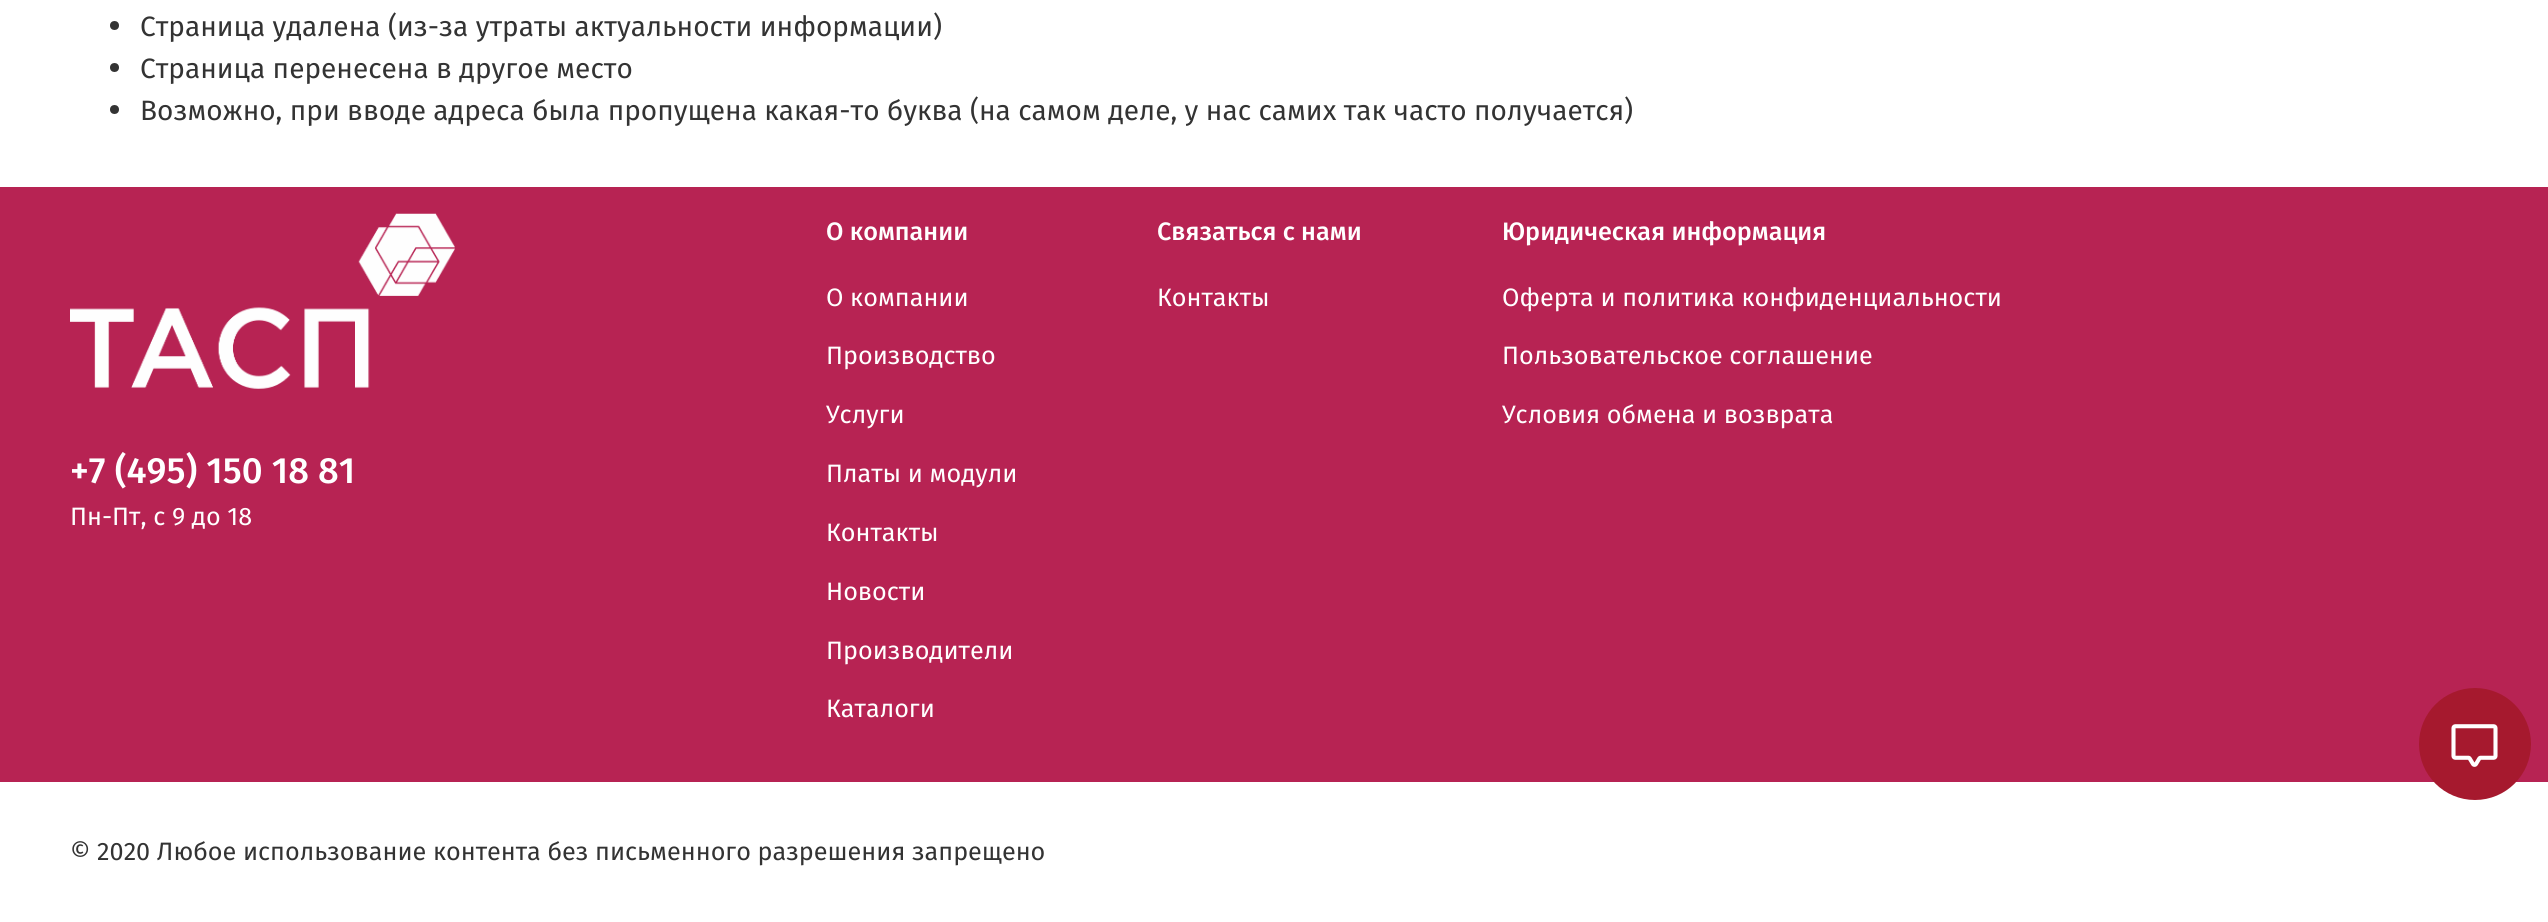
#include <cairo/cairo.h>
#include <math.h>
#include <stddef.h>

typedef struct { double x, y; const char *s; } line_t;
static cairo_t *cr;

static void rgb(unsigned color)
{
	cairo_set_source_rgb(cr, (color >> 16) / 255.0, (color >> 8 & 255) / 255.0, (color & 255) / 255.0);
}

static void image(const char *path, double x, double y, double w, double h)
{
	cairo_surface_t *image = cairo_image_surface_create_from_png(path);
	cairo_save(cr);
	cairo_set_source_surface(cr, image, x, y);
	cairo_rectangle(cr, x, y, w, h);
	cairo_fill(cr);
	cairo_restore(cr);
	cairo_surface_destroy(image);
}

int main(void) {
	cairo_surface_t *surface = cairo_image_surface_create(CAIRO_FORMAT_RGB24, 2548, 922);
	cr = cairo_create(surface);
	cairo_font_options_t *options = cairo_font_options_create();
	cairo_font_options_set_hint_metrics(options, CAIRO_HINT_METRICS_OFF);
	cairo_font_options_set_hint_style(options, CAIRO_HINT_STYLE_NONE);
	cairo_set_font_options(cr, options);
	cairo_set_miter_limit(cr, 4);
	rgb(0xffffff);
	cairo_paint(cr);
	rgb(0x333333);
	cairo_arc(cr, 114.5, 25.5, 4.5, 0, 2 * M_PI);
	cairo_fill(cr);
	cairo_arc(cr, 114.5, 67.5, 4.5, 0, 2 * M_PI);
	cairo_fill(cr);
	cairo_arc(cr, 114.5, 109.5, 4.5, 0, 2 * M_PI);
	cairo_fill(cr);
	rgb(0xb72353);
	cairo_rectangle(cr, 0, 187, 2548, 595);
	cairo_fill(cr);
	image("img/1.png", 70, 213, 385, 176);
	rgb(0xa6192e);
	cairo_arc(cr, 2475, 744, 56, 0, 2 * M_PI);
	cairo_fill(cr);
	image("img/2.png", 2451, 724, 47, 43);
	cairo_select_font_face(cr, "Fira Sans", CAIRO_FONT_SLANT_NORMAL, CAIRO_FONT_WEIGHT_NORMAL);
	cairo_set_font_size(cr, 28);
	rgb(0x333333);
	{
		static const line_t items[] = {
			{140, 36, "Страница удалена (из-за утраты актуальности информации)"},
			{140, 78, "Страница перенесена в другое место"},
			{140, 120, "Возможно, при вводе адреса была пропущена какая-то буква (на самом деле, у нас самих так часто получается)"},
		};
		for (size_t i = 0; i < sizeof items / sizeof *items; i++) {
			cairo_move_to(cr, items[i].x, items[i].y);
			cairo_show_text(cr, items[i].s);
		}
	}
	cairo_select_font_face(cr, "Fira Sans Medium", CAIRO_FONT_SLANT_NORMAL, CAIRO_FONT_WEIGHT_NORMAL);
	cairo_set_font_size(cr, 36.5);
	rgb(0xffffff);
	cairo_move_to(cr, 70, 483);
	cairo_show_text(cr, "+7 (495) 150 18 81");
	cairo_select_font_face(cr, "Fira Sans", CAIRO_FONT_SLANT_NORMAL, CAIRO_FONT_WEIGHT_NORMAL);
	cairo_set_font_size(cr, 25.2);
	cairo_move_to(cr, 70, 525);
	cairo_show_text(cr, "Пн-Пт, с 9 до 18");
	cairo_select_font_face(cr, "Fira Sans Medium", CAIRO_FONT_SLANT_NORMAL, CAIRO_FONT_WEIGHT_NORMAL);
	cairo_move_to(cr, 826, 240);
	cairo_show_text(cr, "О компании");
	cairo_select_font_face(cr, "Fira Sans", CAIRO_FONT_SLANT_NORMAL, CAIRO_FONT_WEIGHT_NORMAL);
	{
		static const line_t items[] = {
			{826, 306, "О компании"},
			{826, 364, "Производство"},
			{826, 423, "Услуги"},
			{826, 482, "Платы и модули"},
			{826, 541, "Контакты"},
			{826, 600, "Новости"},
			{826, 659, "Производители"},
			{826, 717, "Каталоги"},
		};
		for (size_t i = 0; i < sizeof items / sizeof *items; i++) {
			cairo_move_to(cr, items[i].x, items[i].y);
			cairo_show_text(cr, items[i].s);
		}
	}
	cairo_select_font_face(cr, "Fira Sans Medium", CAIRO_FONT_SLANT_NORMAL, CAIRO_FONT_WEIGHT_NORMAL);
	cairo_move_to(cr, 1157, 240);
	cairo_show_text(cr, "Связаться с нами");
	cairo_select_font_face(cr, "Fira Sans", CAIRO_FONT_SLANT_NORMAL, CAIRO_FONT_WEIGHT_NORMAL);
	cairo_move_to(cr, 1157, 306);
	cairo_show_text(cr, "Контакты");
	cairo_select_font_face(cr, "Fira Sans Medium", CAIRO_FONT_SLANT_NORMAL, CAIRO_FONT_WEIGHT_NORMAL);
	cairo_move_to(cr, 1502, 240);
	cairo_show_text(cr, "Юридическая информация");
	cairo_select_font_face(cr, "Fira Sans", CAIRO_FONT_SLANT_NORMAL, CAIRO_FONT_WEIGHT_NORMAL);
	{
		static const line_t items[] = {
			{1502, 306, "Оферта и политика конфиденциальности"},
			{1502, 364, "Пользовательское соглашение"},
			{1502, 423, "Условия обмена и возврата"},
		};
		for (size_t i = 0; i < sizeof items / sizeof *items; i++) {
			cairo_move_to(cr, items[i].x, items[i].y);
			cairo_show_text(cr, items[i].s);
		}
	}
	rgb(0x333333);
	cairo_move_to(cr, 70, 860);
	cairo_show_text(cr, "© 2020 Любое использование контента без письменного разрешения запрещено");
	cairo_surface_write_to_png(surface, "page.png");
	cairo_font_options_destroy(options);
	cairo_destroy(cr);
	cairo_surface_destroy(surface);
	return 0;
}
